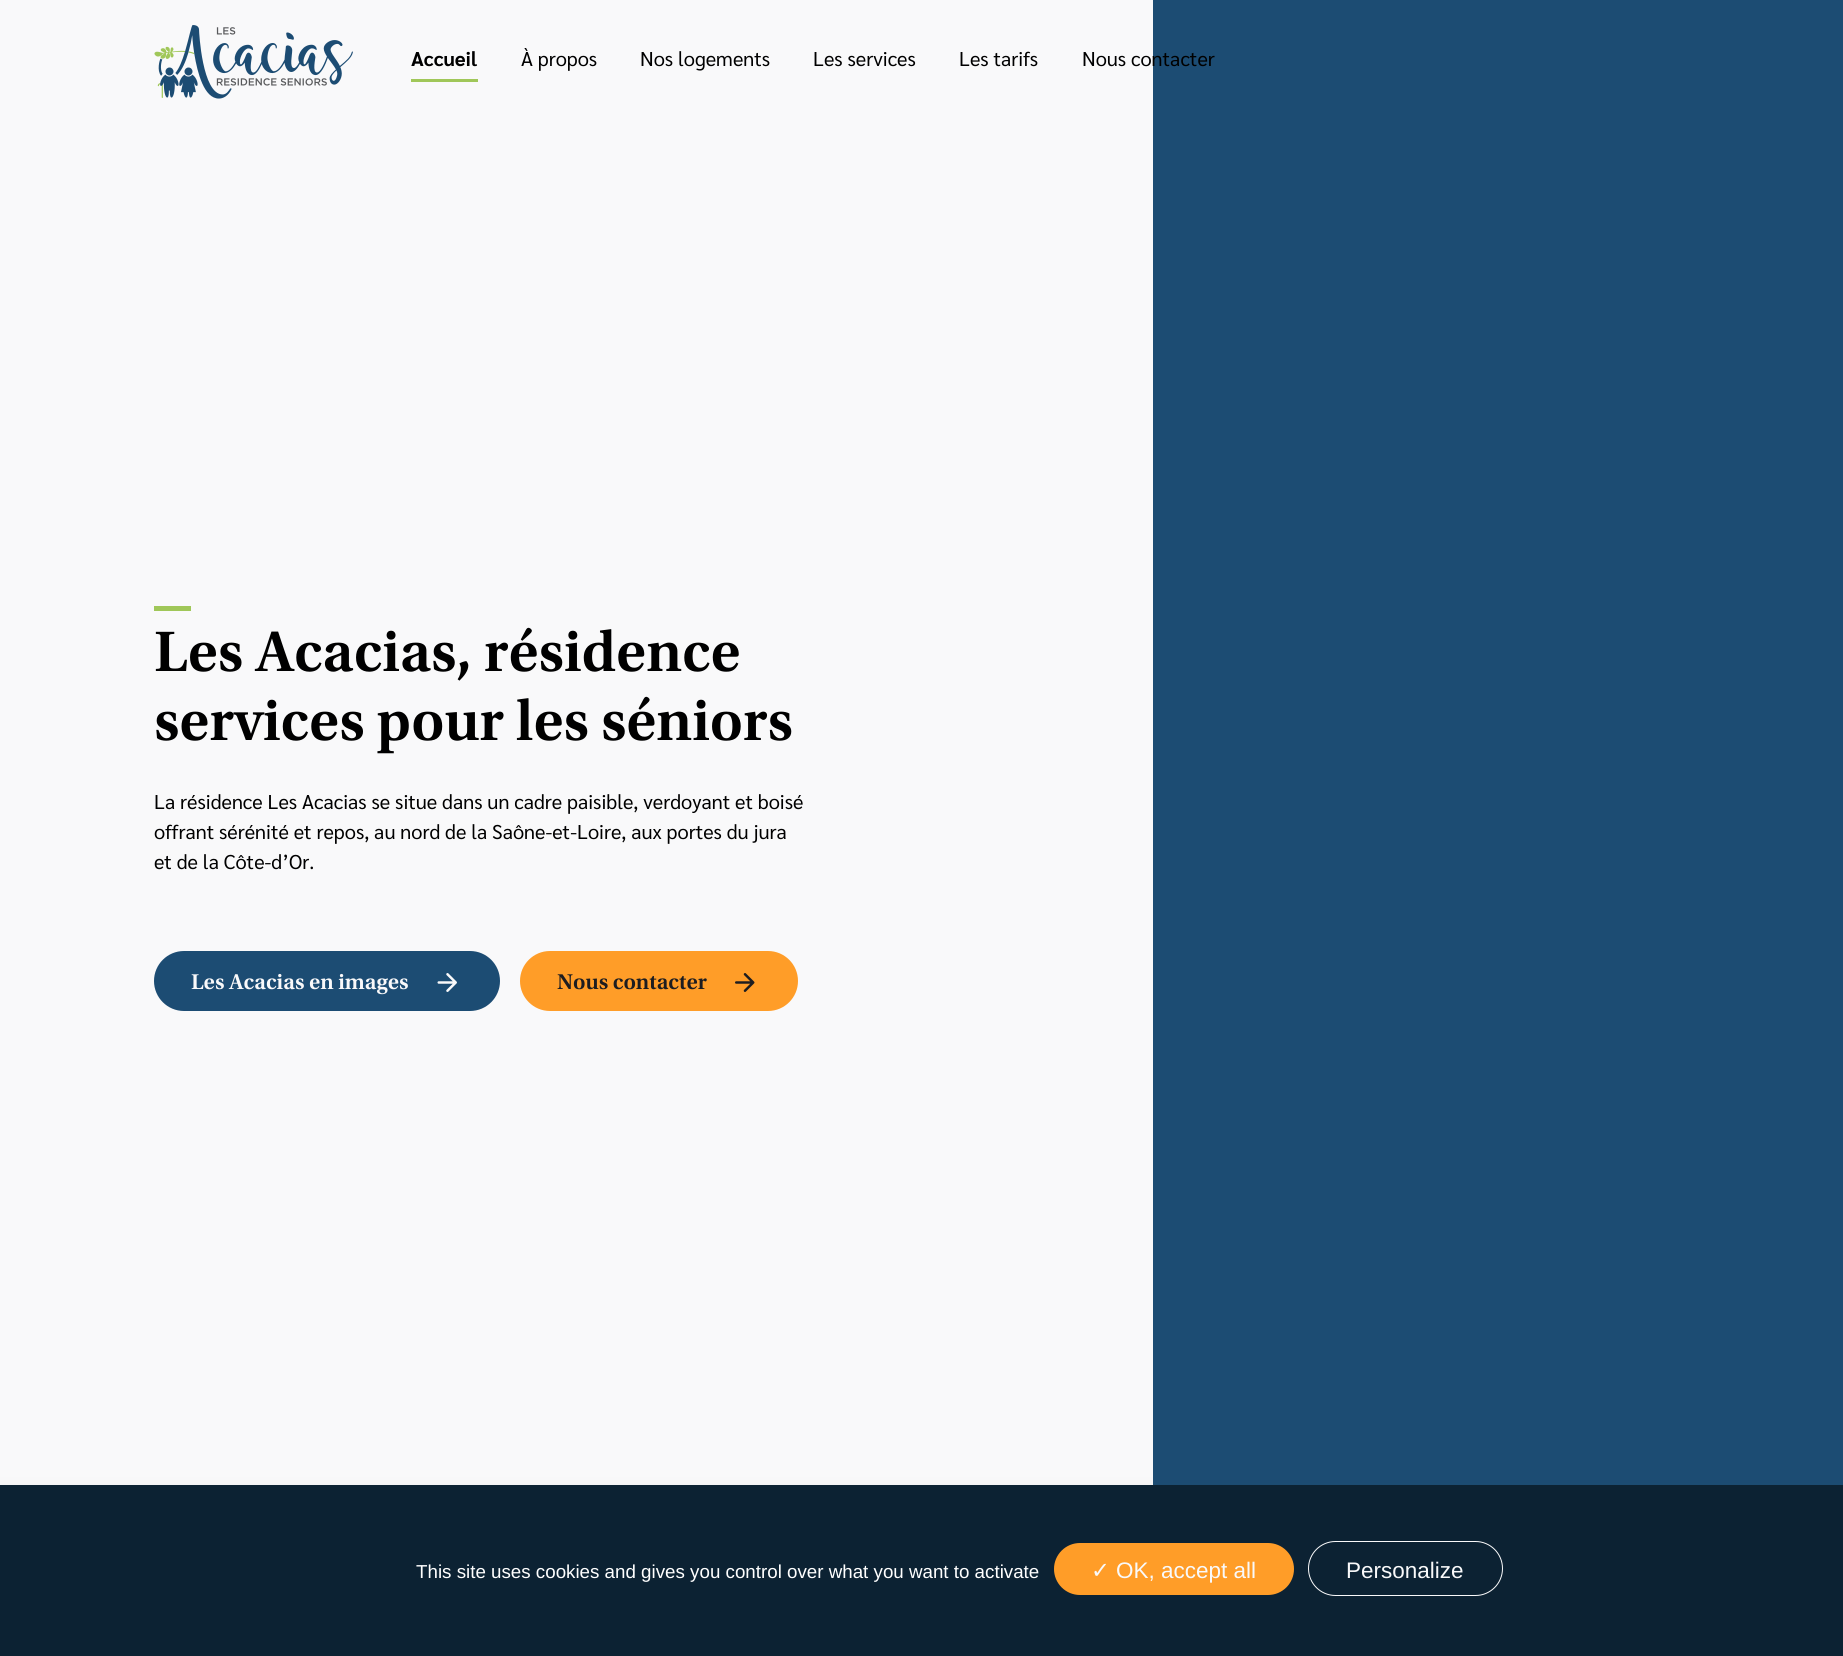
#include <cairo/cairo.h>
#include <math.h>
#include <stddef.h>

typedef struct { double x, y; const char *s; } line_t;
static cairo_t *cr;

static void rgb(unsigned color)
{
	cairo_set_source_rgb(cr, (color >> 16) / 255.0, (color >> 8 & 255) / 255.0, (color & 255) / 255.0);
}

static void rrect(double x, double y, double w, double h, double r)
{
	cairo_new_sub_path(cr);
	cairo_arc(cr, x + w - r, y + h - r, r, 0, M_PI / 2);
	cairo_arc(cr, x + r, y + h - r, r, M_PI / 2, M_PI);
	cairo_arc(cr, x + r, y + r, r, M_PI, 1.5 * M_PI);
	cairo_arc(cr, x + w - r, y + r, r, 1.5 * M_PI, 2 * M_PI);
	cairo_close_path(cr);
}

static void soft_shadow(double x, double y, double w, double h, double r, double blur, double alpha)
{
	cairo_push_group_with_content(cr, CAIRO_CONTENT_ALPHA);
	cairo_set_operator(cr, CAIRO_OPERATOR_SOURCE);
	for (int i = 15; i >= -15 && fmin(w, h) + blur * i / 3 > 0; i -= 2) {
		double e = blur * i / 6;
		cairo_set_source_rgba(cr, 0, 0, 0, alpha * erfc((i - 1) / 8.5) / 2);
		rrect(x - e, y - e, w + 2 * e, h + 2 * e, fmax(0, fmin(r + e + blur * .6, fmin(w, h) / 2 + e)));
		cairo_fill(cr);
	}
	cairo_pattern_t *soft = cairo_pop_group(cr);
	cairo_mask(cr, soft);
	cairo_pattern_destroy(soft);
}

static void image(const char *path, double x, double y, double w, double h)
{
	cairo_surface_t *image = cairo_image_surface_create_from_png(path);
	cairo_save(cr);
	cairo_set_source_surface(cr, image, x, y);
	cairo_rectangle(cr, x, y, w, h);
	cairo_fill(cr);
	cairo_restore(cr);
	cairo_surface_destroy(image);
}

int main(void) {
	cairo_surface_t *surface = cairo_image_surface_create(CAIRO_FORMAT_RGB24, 1843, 1656);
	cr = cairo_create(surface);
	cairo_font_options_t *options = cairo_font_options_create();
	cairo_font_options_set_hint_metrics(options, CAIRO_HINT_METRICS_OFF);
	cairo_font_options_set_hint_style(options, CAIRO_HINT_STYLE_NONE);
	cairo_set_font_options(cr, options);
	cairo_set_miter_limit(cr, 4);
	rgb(0xf9f9fa);
	cairo_paint(cr);
	image("img/1.png", 154, 25, 199, 74);
	rgb(0xa0c759);
	cairo_rectangle(cr, 411, 79, 67, 3);
	cairo_fill(cr);
	cairo_rectangle(cr, 154, 606, 37, 5);
	cairo_fill(cr);
	rgb(0x1c4c73);
	rrect(154, 951, 346, 60, 30);
	cairo_fill(cr);
	image("img/2.png", 437, 973, 20, 19);
	rgb(0xff9d28);
	rrect(520, 951, 278, 60, 30);
	cairo_fill(cr);
	image("img/3.png", 735, 973, 20, 19);
	rgb(0x1c4c73);
	cairo_rectangle(cr, 1153, 0, 690, 1485);
	cairo_fill(cr);
	rgb(0x1d1d20);
	soft_shadow(0, 1495, 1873, 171, 0, 10, 0.15);
	rgb(0x0c2233);
	cairo_rectangle(cr, 0, 1485, 1843, 171);
	cairo_fill(cr);
	rgb(0xff9d28);
	rrect(1054, 1543, 240, 52, 26);
	cairo_fill(cr);
	rrect(1308.5, 1541.5, 194, 54, 27);
	rgb(0xf9f9fa);
	cairo_set_line_width(cr, 1);
	cairo_stroke(cr);
	cairo_select_font_face(cr, "Sarabun", CAIRO_FONT_SLANT_NORMAL, CAIRO_FONT_WEIGHT_BOLD);
	cairo_set_font_size(cr, 20);
	rgb(0x000000);
	cairo_move_to(cr, 411, 66);
	cairo_show_text(cr, "Accueil");
	cairo_select_font_face(cr, "Sarabun", CAIRO_FONT_SLANT_NORMAL, CAIRO_FONT_WEIGHT_NORMAL);
	{
		static const line_t items[] = {
			{521, 66, "À propos"},
			{640, 66, "Nos logements"},
			{813, 66, "Les services"},
			{959, 66, "Les tarifs"},
			{1082, 66, "Nous contacter"},
		};
		for (size_t i = 0; i < sizeof items / sizeof *items; i++) {
			cairo_move_to(cr, items[i].x, items[i].y);
			cairo_show_text(cr, items[i].s);
		}
	}
	cairo_select_font_face(cr, "Utopia SemiBold", CAIRO_FONT_SLANT_NORMAL, CAIRO_FONT_WEIGHT_NORMAL);
	cairo_set_font_size(cr, 60);
	cairo_move_to(cr, 154, 671);
	cairo_show_text(cr, "Les Acacias, résidence");
	cairo_move_to(cr, 154, 740);
	cairo_show_text(cr, "services pour les séniors");
	cairo_select_font_face(cr, "Sarabun", CAIRO_FONT_SLANT_NORMAL, CAIRO_FONT_WEIGHT_NORMAL);
	cairo_set_font_size(cr, 20);
	{
		static const line_t items[] = {
			{154, 809, "La résidence Les Acacias se situe dans un cadre paisible, verdoyant et boisé"},
			{154, 839, "offrant sérénité et repos, au nord de la Saône-et-Loire, aux portes du jura"},
			{154, 869, "et de la Côte-d’Or."},
		};
		for (size_t i = 0; i < sizeof items / sizeof *items; i++) {
			cairo_move_to(cr, items[i].x, items[i].y);
			cairo_show_text(cr, items[i].s);
		}
	}
	cairo_select_font_face(cr, "Utopia SemiBold", CAIRO_FONT_SLANT_NORMAL, CAIRO_FONT_WEIGHT_NORMAL);
	cairo_set_font_size(cr, 22.5);
	rgb(0xf9f9fa);
	cairo_move_to(cr, 191, 989);
	cairo_show_text(cr, "Les Acacias en images");
	rgb(0x1d1d20);
	cairo_move_to(cr, 557, 989);
	cairo_show_text(cr, "Nous contacter");
	cairo_select_font_face(cr, "Liberation Sans", CAIRO_FONT_SLANT_NORMAL, CAIRO_FONT_WEIGHT_NORMAL);
	cairo_set_font_size(cr, 18.75);
	rgb(0xffffff);
	cairo_move_to(cr, 416, 1578);
	cairo_show_text(cr, "This site uses cookies and gives you control over what you want to activate");
	cairo_select_font_face(cr, "DejaVu Sans", CAIRO_FONT_SLANT_NORMAL, CAIRO_FONT_WEIGHT_NORMAL);
	cairo_set_font_size(cr, 22.5);
	rgb(0xf9f9fa);
	cairo_move_to(cr, 1091, 1578);
	cairo_show_text(cr, "✓");
	cairo_select_font_face(cr, "Liberation Sans", CAIRO_FONT_SLANT_NORMAL, CAIRO_FONT_WEIGHT_NORMAL);
	cairo_move_to(cr, 1116, 1578);
	cairo_show_text(cr, "OK, accept all");
	cairo_move_to(cr, 1346, 1578);
	cairo_show_text(cr, "Personalize");
	cairo_surface_write_to_png(surface, "page.png");
	cairo_font_options_destroy(options);
	cairo_destroy(cr);
	cairo_surface_destroy(surface);
	return 0;
}
